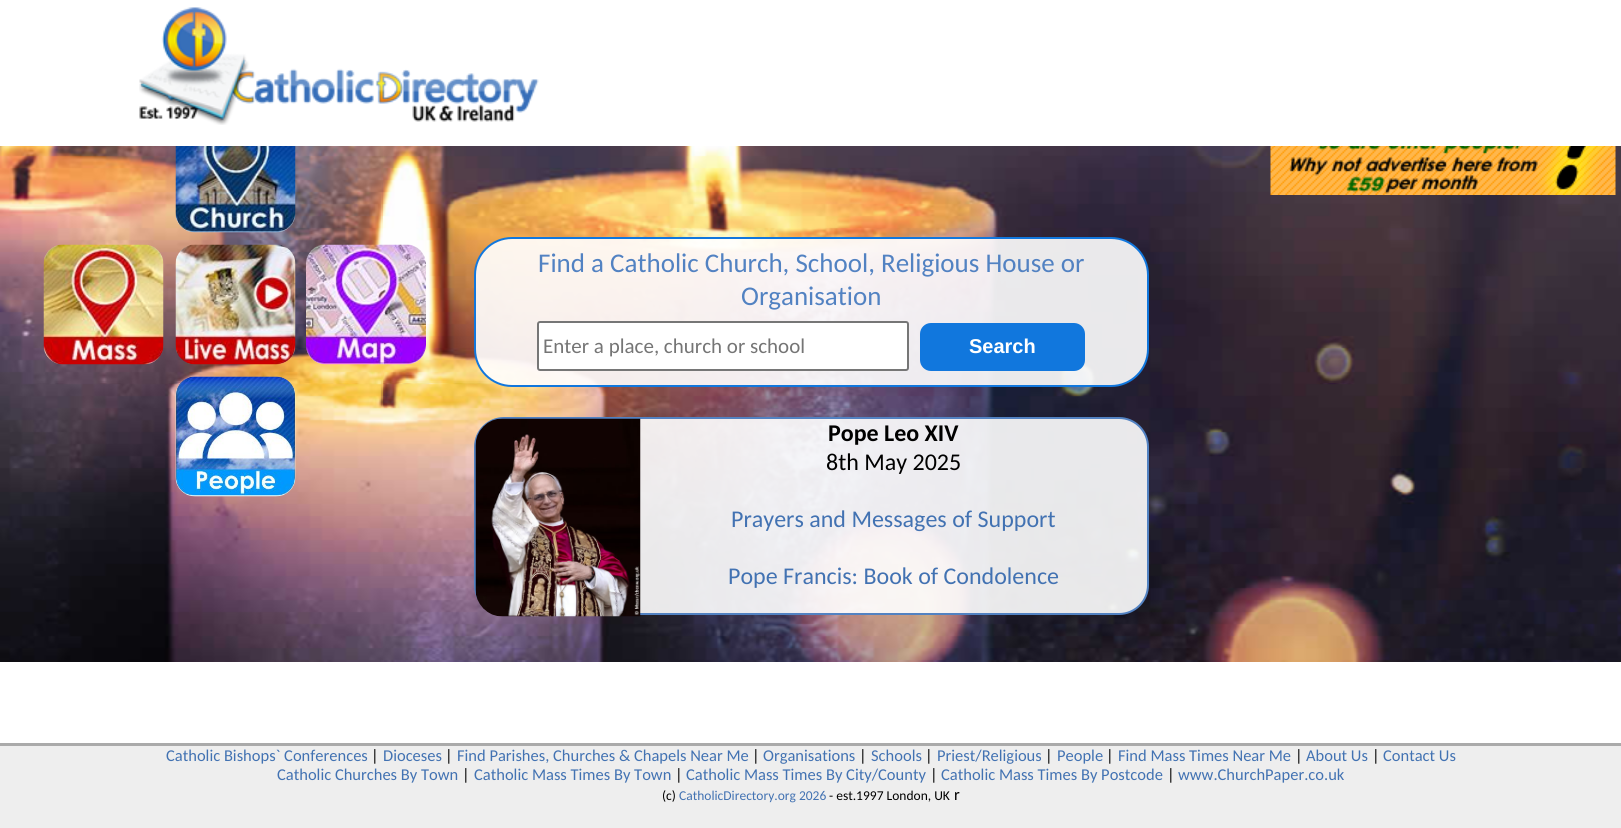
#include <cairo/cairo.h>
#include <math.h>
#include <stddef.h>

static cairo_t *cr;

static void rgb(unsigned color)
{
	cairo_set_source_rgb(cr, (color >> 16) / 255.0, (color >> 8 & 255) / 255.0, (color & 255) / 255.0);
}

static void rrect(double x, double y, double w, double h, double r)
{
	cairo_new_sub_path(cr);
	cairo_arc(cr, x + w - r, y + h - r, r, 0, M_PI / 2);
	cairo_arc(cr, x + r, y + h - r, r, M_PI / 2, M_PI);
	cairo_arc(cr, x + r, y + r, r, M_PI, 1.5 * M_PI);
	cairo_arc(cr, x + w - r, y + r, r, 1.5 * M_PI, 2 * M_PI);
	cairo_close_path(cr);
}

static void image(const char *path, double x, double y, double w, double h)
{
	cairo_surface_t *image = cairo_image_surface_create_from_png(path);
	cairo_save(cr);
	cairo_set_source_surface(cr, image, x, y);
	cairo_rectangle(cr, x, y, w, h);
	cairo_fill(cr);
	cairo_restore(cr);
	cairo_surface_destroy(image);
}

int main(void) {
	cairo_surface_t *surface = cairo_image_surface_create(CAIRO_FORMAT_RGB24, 1621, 828);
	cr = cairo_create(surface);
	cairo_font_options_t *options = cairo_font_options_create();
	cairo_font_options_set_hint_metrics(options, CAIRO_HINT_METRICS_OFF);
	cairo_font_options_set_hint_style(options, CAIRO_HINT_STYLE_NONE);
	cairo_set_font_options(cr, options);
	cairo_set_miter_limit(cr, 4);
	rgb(0xffffff);
	cairo_paint(cr);
	image("img/1.png", 139, 7, 400, 118);
	image("img/2.png", 0, 146, 1621, 516);
	image("img/3.png", 175, 146, 121, 87);
	image("img/4.png", 43, 244, 121, 121);
	image("img/5.png", 175, 244, 121, 121);
	image("img/6.png", 306, 244, 120, 121);
	image("img/7.png", 175, 376, 121, 121);
	image("img/8.png", 1270, 146, 346, 49);
	cairo_set_source_rgba(cr, 1, 1, 1, 0.9);
	rrect(475, 238, 673, 148, 37);
	cairo_fill_preserve(cr);
	rgb(0x1177dd);
	cairo_stroke(cr);
	rgb(0xffffff);
	rrect(538, 322, 370, 48, 2);
	cairo_fill_preserve(cr);
	rgb(0x767676);
	cairo_stroke(cr);
	rgb(0x1177dd);
	rrect(920, 323, 165, 48, 11);
	cairo_fill(cr);
	cairo_set_source_rgba(cr, 1, 1, 1, 0.9);
	rrect(475, 418, 673, 196, 29);
	cairo_fill_preserve(cr);
	rgb(0x5282c2);
	cairo_stroke(cr);
	image("img/9.png", 475, 418, 166, 199);
	rgb(0xeeeeee);
	cairo_rectangle(cr, 0, 746, 1621, 82);
	cairo_fill(cr);
	rgb(0xaaaaaa);
	cairo_rectangle(cr, 0, 743, 1621, 3);
	cairo_fill(cr);
	cairo_select_font_face(cr, "Carlito", CAIRO_FONT_SLANT_NORMAL, CAIRO_FONT_WEIGHT_NORMAL);
	cairo_set_font_size(cr, 27);
	rgb(0x5282c2);
	cairo_move_to(cr, 538, 272);
	cairo_show_text(cr, "Find a Catholic Church, School, Religious House or");
	cairo_move_to(cr, 741, 305);
	cairo_show_text(cr, "Organisation");
	cairo_set_font_size(cr, 21);
	rgb(0x757575);
	cairo_move_to(cr, 543, 353);
	cairo_show_text(cr, "Enter a place, church or school");
	cairo_select_font_face(cr, "Liberation Sans", CAIRO_FONT_SLANT_NORMAL, CAIRO_FONT_WEIGHT_BOLD);
	cairo_set_font_size(cr, 20);
	rgb(0xffffff);
	cairo_move_to(cr, 969, 353);
	cairo_show_text(cr, "Search");
	cairo_select_font_face(cr, "Carlito", CAIRO_FONT_SLANT_NORMAL, CAIRO_FONT_WEIGHT_BOLD);
	cairo_set_font_size(cr, 24);
	rgb(0x000000);
	cairo_move_to(cr, 828, 441);
	cairo_show_text(cr, "Pope Leo XIV");
	cairo_select_font_face(cr, "Carlito", CAIRO_FONT_SLANT_NORMAL, CAIRO_FONT_WEIGHT_NORMAL);
	cairo_move_to(cr, 826, 470);
	cairo_show_text(cr, "8th May 2025");
	rgb(0x4272b2);
	cairo_move_to(cr, 731, 527);
	cairo_show_text(cr, "Prayers and Messages of Support");
	cairo_move_to(cr, 728, 584);
	cairo_show_text(cr, "Pope Francis: Book of Condolence");
	cairo_set_font_size(cr, 16.5);
	cairo_move_to(cr, 166, 761);
	cairo_show_text(cr, "Catholic Bishops` Conferences");
	rgb(0x000000);
	cairo_move_to(cr, 371, 761);
	cairo_show_text(cr, "|");
	rgb(0x4272b2);
	cairo_move_to(cr, 383, 761);
	cairo_show_text(cr, "Dioceses");
	rgb(0x000000);
	cairo_move_to(cr, 445, 761);
	cairo_show_text(cr, "|");
	rgb(0x4272b2);
	cairo_move_to(cr, 457, 761);
	cairo_show_text(cr, "Find Parishes, Churches & Chapels Near Me");
	rgb(0x000000);
	cairo_move_to(cr, 752, 761);
	cairo_show_text(cr, "|");
	rgb(0x4272b2);
	cairo_move_to(cr, 763, 761);
	cairo_show_text(cr, "Organisations");
	rgb(0x000000);
	cairo_move_to(cr, 859, 761);
	cairo_show_text(cr, "|");
	rgb(0x4272b2);
	cairo_move_to(cr, 871, 761);
	cairo_show_text(cr, "Schools");
	rgb(0x000000);
	cairo_move_to(cr, 925, 761);
	cairo_show_text(cr, "|");
	rgb(0x4272b2);
	cairo_move_to(cr, 937, 761);
	cairo_show_text(cr, "Priest/Religious");
	rgb(0x000000);
	cairo_move_to(cr, 1045, 761);
	cairo_show_text(cr, "|");
	rgb(0x4272b2);
	cairo_move_to(cr, 1057, 761);
	cairo_show_text(cr, "People");
	rgb(0x000000);
	cairo_move_to(cr, 1106, 761);
	cairo_show_text(cr, "|");
	rgb(0x4272b2);
	cairo_move_to(cr, 1118, 761);
	cairo_show_text(cr, "Find Mass Times Near Me");
	rgb(0x000000);
	cairo_move_to(cr, 1295, 761);
	cairo_show_text(cr, "|");
	rgb(0x4272b2);
	cairo_move_to(cr, 1306, 761);
	cairo_show_text(cr, "About Us");
	rgb(0x000000);
	cairo_move_to(cr, 1372, 761);
	cairo_show_text(cr, "|");
	rgb(0x4272b2);
	cairo_move_to(cr, 1383, 761);
	cairo_show_text(cr, "Contact Us");
	cairo_move_to(cr, 277, 780);
	cairo_show_text(cr, "Catholic Churches By Town");
	rgb(0x000000);
	cairo_move_to(cr, 462, 780);
	cairo_show_text(cr, "|");
	rgb(0x4272b2);
	cairo_move_to(cr, 474, 780);
	cairo_show_text(cr, "Catholic Mass Times By Town");
	rgb(0x000000);
	cairo_move_to(cr, 675, 780);
	cairo_show_text(cr, "|");
	rgb(0x4272b2);
	cairo_move_to(cr, 686, 780);
	cairo_show_text(cr, "Catholic Mass Times By City/County");
	rgb(0x000000);
	cairo_move_to(cr, 930, 780);
	cairo_show_text(cr, "|");
	rgb(0x4272b2);
	cairo_move_to(cr, 941, 780);
	cairo_show_text(cr, "Catholic Mass Times By Postcode");
	rgb(0x000000);
	cairo_move_to(cr, 1167, 780);
	cairo_show_text(cr, "|");
	rgb(0x4272b2);
	cairo_move_to(cr, 1178, 780);
	cairo_show_text(cr, "www.ChurchPaper.co.uk");
	cairo_set_font_size(cr, 13.5);
	rgb(0x000000);
	cairo_move_to(cr, 662, 800);
	cairo_show_text(cr, "(c)");
	rgb(0x4272b2);
	cairo_move_to(cr, 679, 800);
	cairo_show_text(cr, "CatholicDirectory.org 2026");
	rgb(0x000000);
	cairo_move_to(cr, 829, 800);
	cairo_show_text(cr, "- est.1997 London, UK");
	cairo_set_font_size(cr, 16.5);
	cairo_move_to(cr, 954, 800);
	cairo_show_text(cr, "r");
	cairo_surface_write_to_png(surface, "page.png");
	cairo_font_options_destroy(options);
	cairo_destroy(cr);
	cairo_surface_destroy(surface);
	return 0;
}
